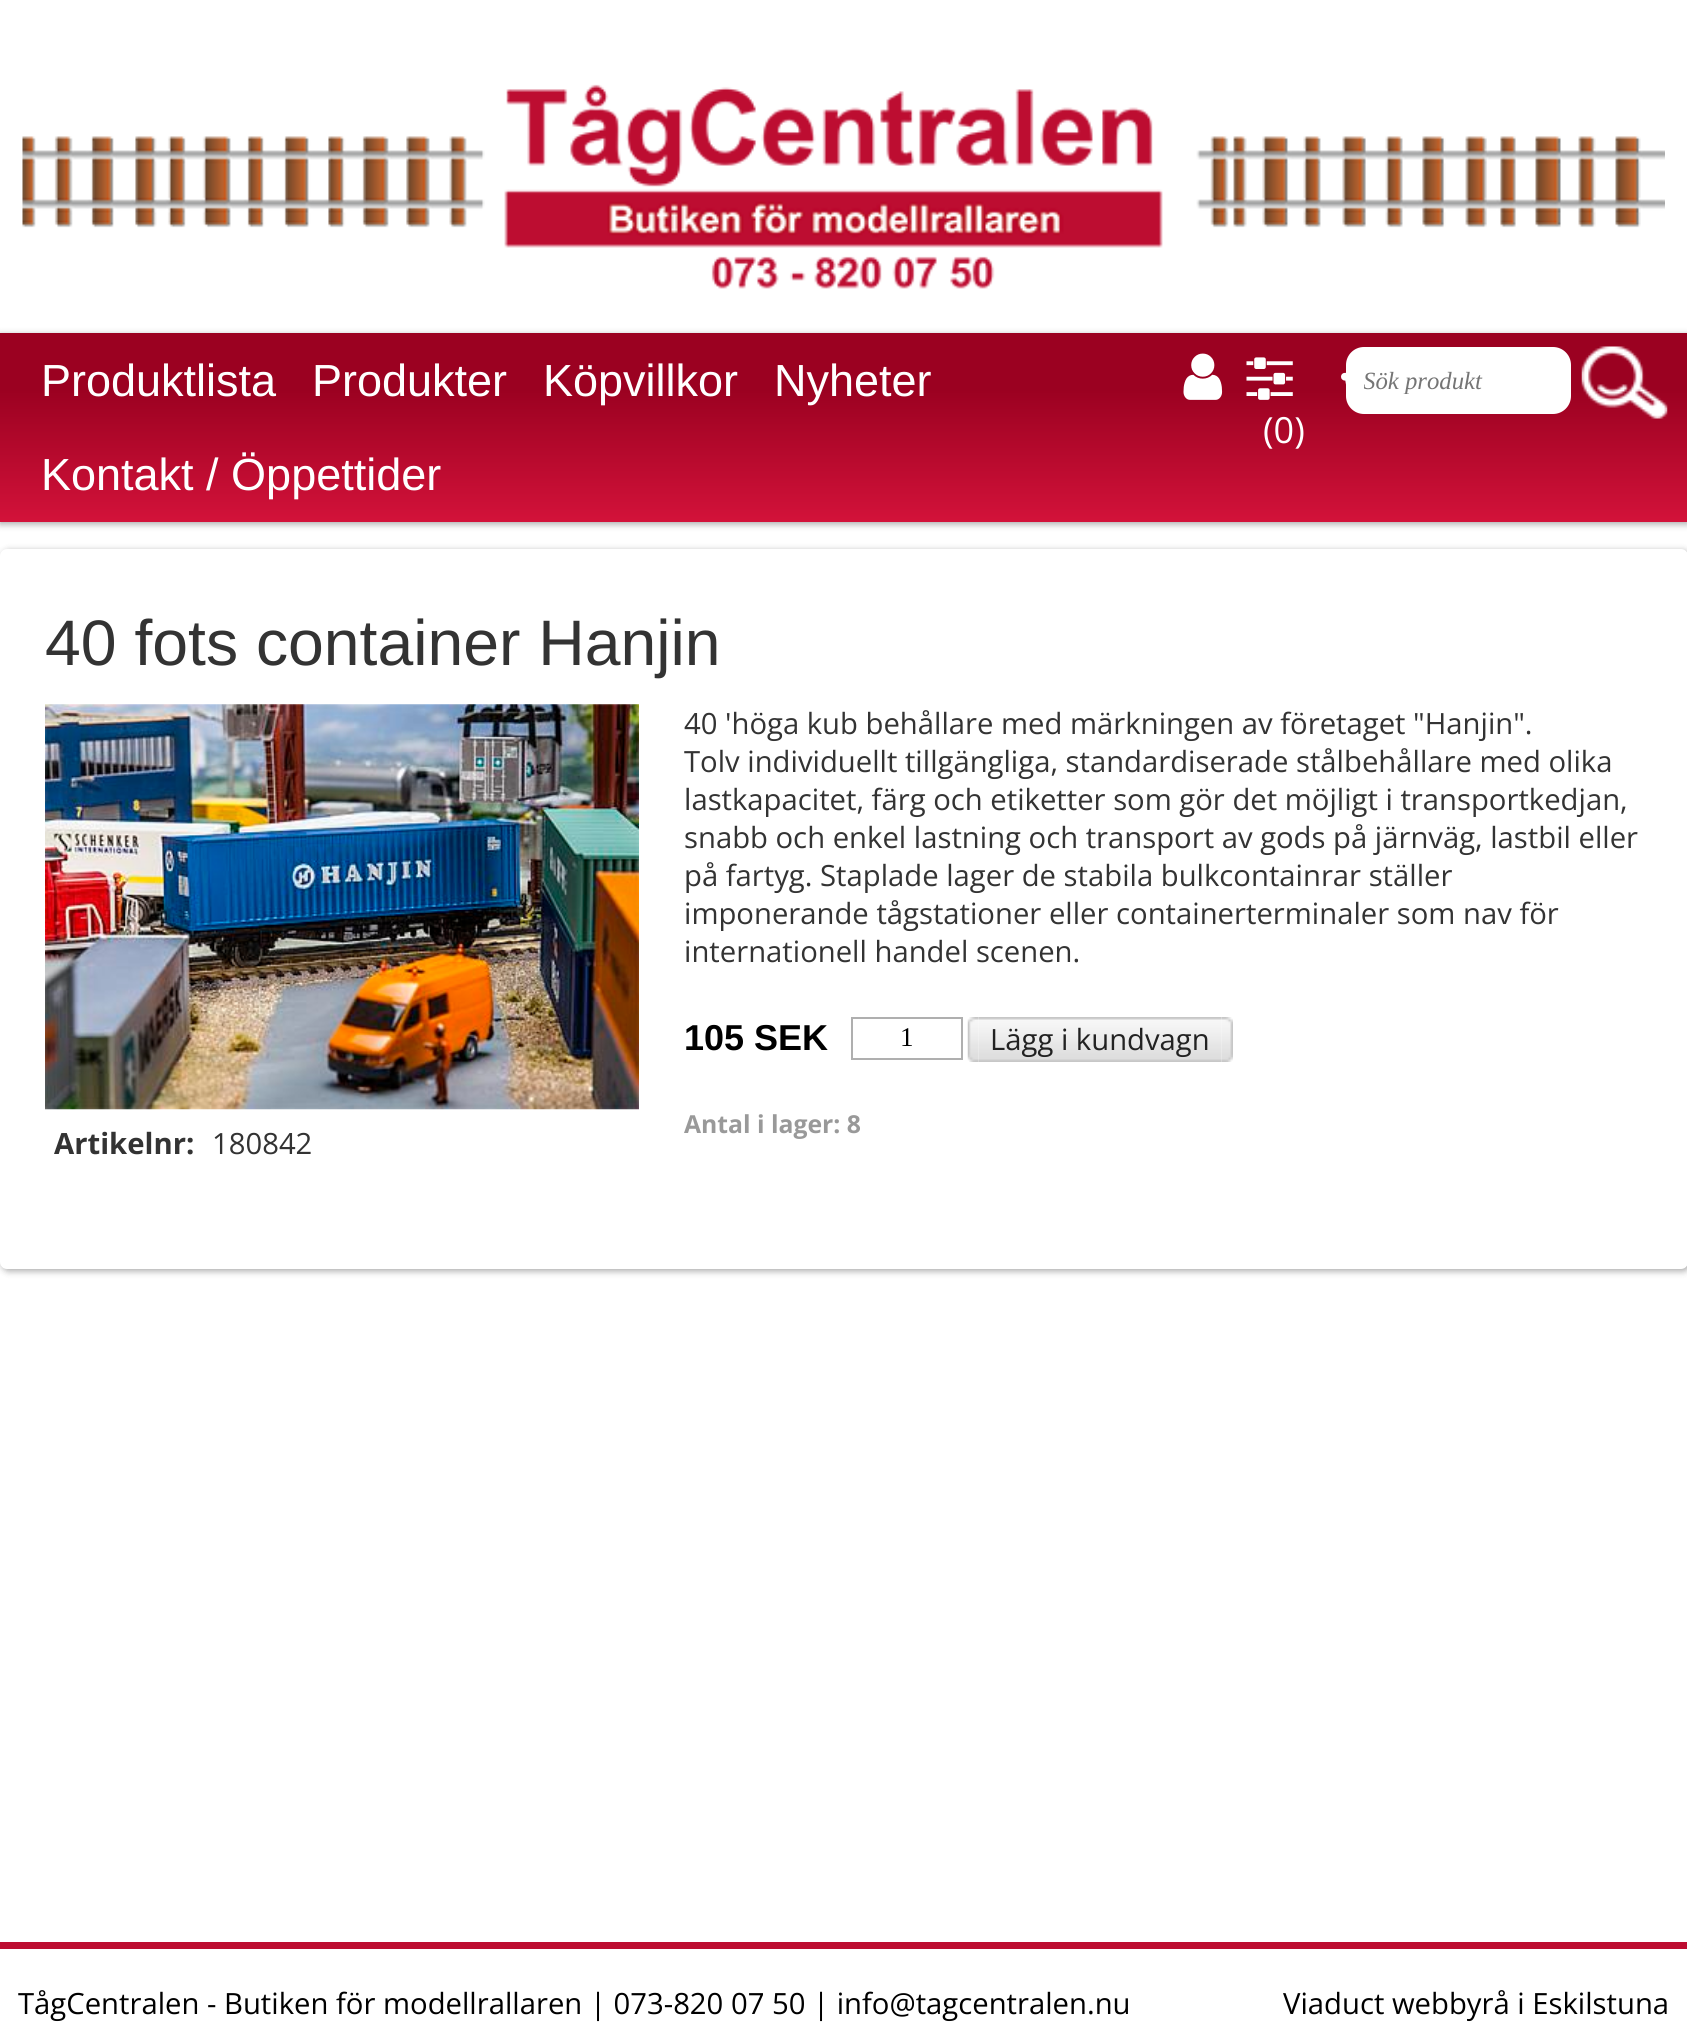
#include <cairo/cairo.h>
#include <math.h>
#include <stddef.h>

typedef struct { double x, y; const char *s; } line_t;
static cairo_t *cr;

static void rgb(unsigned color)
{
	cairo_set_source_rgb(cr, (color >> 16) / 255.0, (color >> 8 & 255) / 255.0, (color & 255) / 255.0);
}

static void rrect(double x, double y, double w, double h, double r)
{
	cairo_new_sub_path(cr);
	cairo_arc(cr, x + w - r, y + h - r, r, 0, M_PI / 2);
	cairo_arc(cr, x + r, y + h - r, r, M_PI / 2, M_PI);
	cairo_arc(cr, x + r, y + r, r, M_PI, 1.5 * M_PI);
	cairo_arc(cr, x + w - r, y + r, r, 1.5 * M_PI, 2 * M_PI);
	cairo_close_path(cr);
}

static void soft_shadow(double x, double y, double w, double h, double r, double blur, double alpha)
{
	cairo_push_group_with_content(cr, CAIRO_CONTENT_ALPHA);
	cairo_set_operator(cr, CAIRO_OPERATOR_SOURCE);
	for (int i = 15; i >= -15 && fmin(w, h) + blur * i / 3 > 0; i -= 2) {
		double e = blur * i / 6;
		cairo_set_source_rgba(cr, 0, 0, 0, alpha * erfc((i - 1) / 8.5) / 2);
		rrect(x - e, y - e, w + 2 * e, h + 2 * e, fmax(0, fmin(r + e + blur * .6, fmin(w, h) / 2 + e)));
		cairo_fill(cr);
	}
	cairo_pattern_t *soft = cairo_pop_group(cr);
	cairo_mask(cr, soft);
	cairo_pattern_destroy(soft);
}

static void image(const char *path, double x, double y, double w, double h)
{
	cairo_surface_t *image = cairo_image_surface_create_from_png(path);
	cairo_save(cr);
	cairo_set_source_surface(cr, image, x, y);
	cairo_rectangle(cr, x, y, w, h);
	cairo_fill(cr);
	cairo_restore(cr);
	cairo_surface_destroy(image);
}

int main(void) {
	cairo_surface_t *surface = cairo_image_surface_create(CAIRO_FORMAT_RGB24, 1687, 2041);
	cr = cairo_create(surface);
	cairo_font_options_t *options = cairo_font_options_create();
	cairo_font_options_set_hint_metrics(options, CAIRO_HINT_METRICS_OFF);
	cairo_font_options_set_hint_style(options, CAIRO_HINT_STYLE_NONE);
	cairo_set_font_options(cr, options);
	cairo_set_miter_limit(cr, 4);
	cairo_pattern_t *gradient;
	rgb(0xffffff);
	cairo_paint(cr);
	image("img/1.png", 22, 84, 1643, 205);
	rgb(0x000000);
	soft_shadow(0, 335, 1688, 189, 0, 3.5, 0.35);
	gradient = cairo_pattern_create_linear(844, 333, 844, 522);
	cairo_pattern_add_color_stop_rgba(gradient, 0, 0.608, 0.004, 0.129, 1);
	cairo_pattern_add_color_stop_rgba(gradient, 0.3, 0.608, 0.004, 0.129, 1);
	cairo_pattern_add_color_stop_rgba(gradient, 1, 0.827, 0.071, 0.227, 1);
	cairo_set_source(cr, gradient);
	cairo_pattern_destroy(gradient);
	cairo_rectangle(cr, 0, 333, 1687, 189);
	cairo_fill(cr);
	rgb(0xffffff);
	rrect(1346, 347, 225, 67, 18);
	cairo_fill(cr);
	image("img/2.png", 1581, 346, 87, 73);
	image("img/3.png", 1183, 353, 40, 47);
	image("img/4.png", 1246, 357, 47, 43);
	image("img/5.png", 1341, 372, 5, 13);
	rgb(0x000000);
	soft_shadow(2, 551, 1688, 720, 7, 3.5, 0.35);
	rgb(0xffffff);
	rrect(0, 549, 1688, 720, 7);
	cairo_fill(cr);
	cairo_rectangle(cr, 852, 1018, 110, 41);
	rgb(0xafafaf);
	cairo_stroke(cr);
	image("img/6.png", 967, 1017, 12, 45);
	image("img/7.png", 979, 1017, 243, 45);
	image("img/8.png", 1222, 1017, 11, 45);
	image("img/9.png", 45, 704, 594, 406);
	rgb(0xbd0d31);
	cairo_rectangle(cr, 0, 1942, 1687, 7);
	cairo_fill(cr);
	cairo_select_font_face(cr, "Liberation Sans", CAIRO_FONT_SLANT_NORMAL, CAIRO_FONT_WEIGHT_NORMAL);
	cairo_set_font_size(cr, 45);
	rgb(0xffffff);
	{
		static const line_t items[] = {
			{41, 396, "Produktlista"},
			{312, 396, "Produkter"},
			{543, 396, "Köpvillkor"},
			{774, 396, "Nyheter"},
			{41, 490, "Kontakt / Öppettider"},
		};
		for (size_t i = 0; i < sizeof items / sizeof *items; i++) {
			cairo_move_to(cr, items[i].x, items[i].y);
			cairo_show_text(cr, items[i].s);
		}
	}
	cairo_save(cr);
	cairo_rectangle(cr, 1364, 367, 207, 27);
	cairo_clip(cr);
	cairo_select_font_face(cr, "Liberation Serif", CAIRO_FONT_SLANT_ITALIC, CAIRO_FONT_WEIGHT_NORMAL);
	cairo_set_font_size(cr, 24.75);
	rgb(0x757575);
	cairo_move_to(cr, 1363, 389);
	cairo_show_text(cr, "Sök produkt");
	cairo_restore(cr);
	cairo_select_font_face(cr, "Open Sans", CAIRO_FONT_SLANT_NORMAL, CAIRO_FONT_WEIGHT_NORMAL);
	cairo_set_font_size(cr, 36);
	cairo_move_to(cr, 1263, 443);
	cairo_show_text(cr, "(0)");
	cairo_select_font_face(cr, "Liberation Sans", CAIRO_FONT_SLANT_NORMAL, CAIRO_FONT_WEIGHT_NORMAL);
	cairo_set_font_size(cr, 64.3);
	rgb(0x333333);
	cairo_move_to(cr, 45, 665);
	cairo_show_text(cr, "40 fots container Hanjin");
	cairo_select_font_face(cr, "Open Sans", CAIRO_FONT_SLANT_NORMAL, CAIRO_FONT_WEIGHT_NORMAL);
	cairo_set_font_size(cr, 29.25);
	{
		static const line_t items[] = {
			{684, 734, "40 'höga kub behållare med märkningen av företaget \"Hanjin\"."},
			{684, 772, "Tolv individuellt tillgängliga, standardiserade stålbehållare med olika"},
			{684, 810, "lastkapacitet, färg och etiketter som gör det möjligt i transportkedjan,"},
			{684, 848, "snabb och enkel lastning och transport av gods på järnväg, lastbil eller"},
			{684, 886, "på fartyg. Staplade lager de stabila bulkcontainrar ställer"},
			{684, 924, "imponerande tågstationer eller containerterminaler som nav för"},
			{684, 962, "internationell handel scenen."},
		};
		for (size_t i = 0; i < sizeof items / sizeof *items; i++) {
			cairo_move_to(cr, items[i].x, items[i].y);
			cairo_show_text(cr, items[i].s);
		}
	}
	cairo_select_font_face(cr, "Liberation Sans", CAIRO_FONT_SLANT_NORMAL, CAIRO_FONT_WEIGHT_BOLD);
	cairo_set_font_size(cr, 36);
	rgb(0x000000);
	cairo_move_to(cr, 684, 1050);
	cairo_show_text(cr, "105 SEK");
	cairo_select_font_face(cr, "Liberation Serif", CAIRO_FONT_SLANT_NORMAL, CAIRO_FONT_WEIGHT_NORMAL);
	cairo_set_font_size(cr, 27);
	cairo_move_to(cr, 900, 1046);
	cairo_show_text(cr, "1");
	cairo_select_font_face(cr, "Open Sans", CAIRO_FONT_SLANT_NORMAL, CAIRO_FONT_WEIGHT_NORMAL);
	cairo_set_font_size(cr, 29.25);
	rgb(0x222222);
	cairo_move_to(cr, 990, 1050);
	cairo_show_text(cr, "Lägg i kundvagn");
	cairo_select_font_face(cr, "Open Sans", CAIRO_FONT_SLANT_NORMAL, CAIRO_FONT_WEIGHT_BOLD);
	cairo_set_font_size(cr, 24.75);
	rgb(0x999999);
	cairo_move_to(cr, 684, 1133);
	cairo_show_text(cr, "Antal i lager: 8");
	cairo_set_font_size(cr, 29.25);
	rgb(0x333333);
	cairo_move_to(cr, 54, 1154);
	cairo_show_text(cr, "Artikelnr:");
	cairo_select_font_face(cr, "Open Sans", CAIRO_FONT_SLANT_NORMAL, CAIRO_FONT_WEIGHT_NORMAL);
	cairo_move_to(cr, 212, 1154);
	cairo_show_text(cr, "180842");
	rgb(0x000000);
	cairo_move_to(cr, 18, 2014);
	cairo_show_text(cr, "TågCentralen - Butiken för modellrallaren | 073-820 07 50 | info@tagcentralen.nu");
	cairo_move_to(cr, 1283, 2014);
	cairo_show_text(cr, "Viaduct webbyrå i Eskilstuna");
	cairo_surface_write_to_png(surface, "page.png");
	cairo_font_options_destroy(options);
	cairo_destroy(cr);
	cairo_surface_destroy(surface);
	return 0;
}
